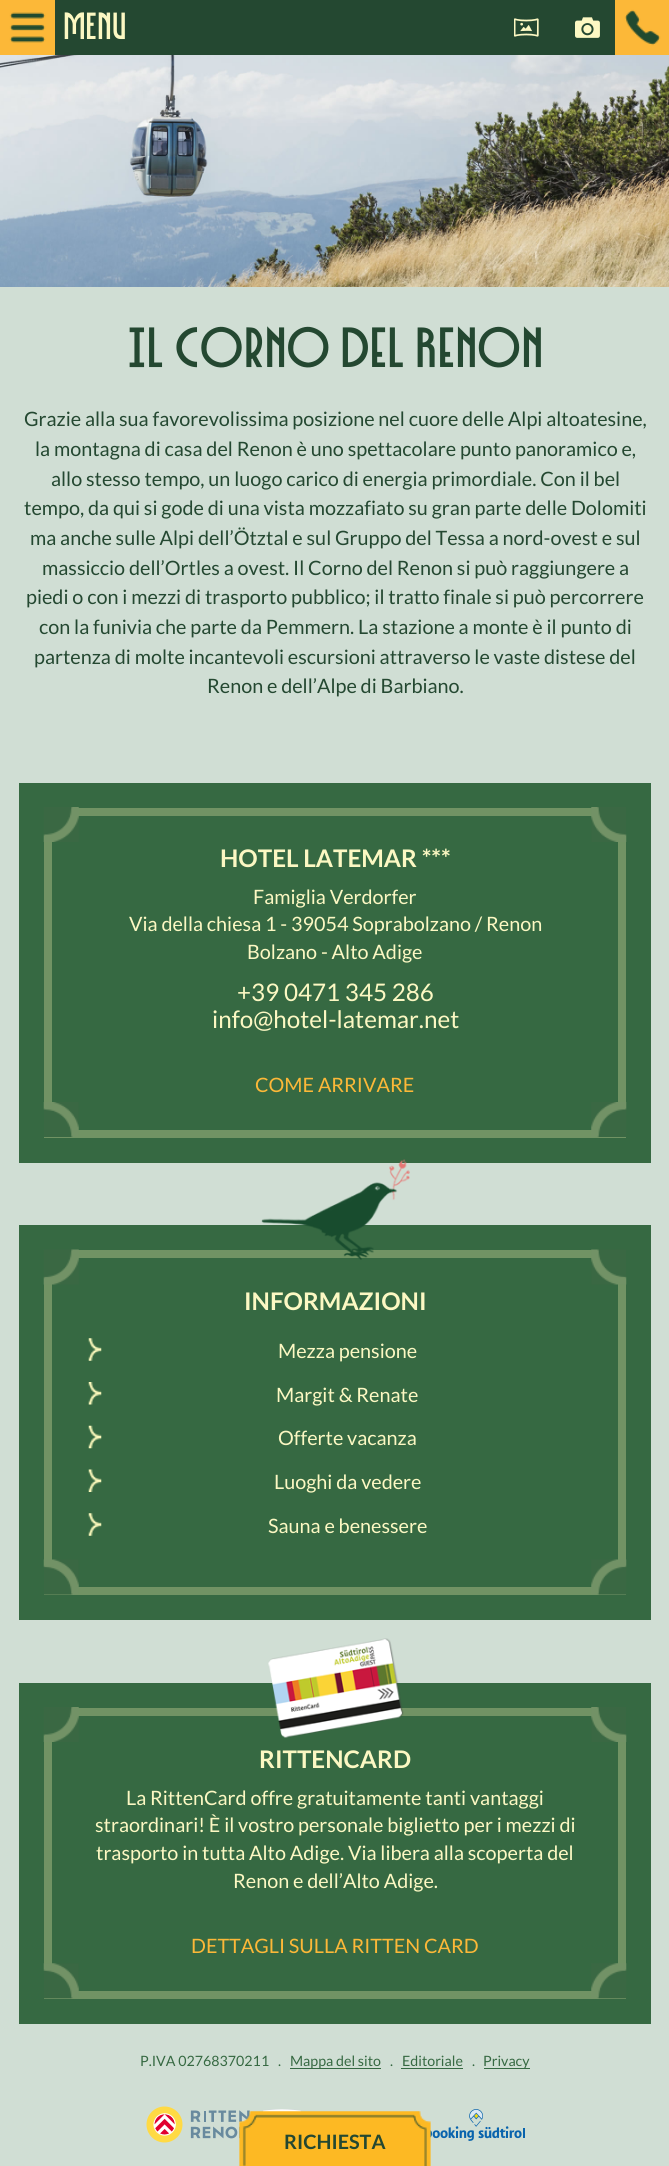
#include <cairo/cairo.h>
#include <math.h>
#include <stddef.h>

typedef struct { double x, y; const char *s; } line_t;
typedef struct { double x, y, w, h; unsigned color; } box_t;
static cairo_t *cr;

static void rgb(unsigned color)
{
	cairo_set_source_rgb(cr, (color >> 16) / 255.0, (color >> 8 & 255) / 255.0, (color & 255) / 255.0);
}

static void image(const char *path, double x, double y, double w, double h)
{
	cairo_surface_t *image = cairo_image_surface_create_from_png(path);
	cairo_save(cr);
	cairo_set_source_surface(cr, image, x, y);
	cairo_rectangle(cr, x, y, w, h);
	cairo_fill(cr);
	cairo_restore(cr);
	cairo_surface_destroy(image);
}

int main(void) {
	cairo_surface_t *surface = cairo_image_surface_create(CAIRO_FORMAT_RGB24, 669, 2166);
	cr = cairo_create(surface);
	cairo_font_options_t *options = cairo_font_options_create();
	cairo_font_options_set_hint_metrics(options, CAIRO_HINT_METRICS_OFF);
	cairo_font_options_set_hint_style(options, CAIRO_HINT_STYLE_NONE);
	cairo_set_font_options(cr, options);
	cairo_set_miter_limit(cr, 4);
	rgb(0xd0ded4);
	cairo_paint(cr);
	rgb(0x244831);
	cairo_rectangle(cr, 55, 0, 560, 55);
	cairo_fill(cr);
	image("img/1.png", 0, 0, 55, 55);
	image("img/2.png", 615, 0, 54, 55);
	image("img/3.png", 514, 18, 25, 19);
	image("img/4.png", 575, 17, 25, 21);
	image("img/23.png", 146, 2106, 104, 37);
	image("img/24.png", 263, 2109, 38, 3);
	image("img/25.png", 430, 2109, 95, 32);
	image("img/5.png", 239, 2111, 192, 55);
	image("img/6.png", 0, 55, 669, 232);
	rgb(0x366942);
	cairo_rectangle(cr, 19, 783, 632, 380);
	cairo_fill(cr);
	cairo_rectangle(cr, 48, 812, 574, 322);
	rgb(0x719364);
	cairo_set_line_width(cr, 8);
	cairo_stroke(cr);
	image("img/7.png", 43, 807, 36, 35);
	image("img/8.png", 591, 807, 36, 35);
	image("img/9.png", 43, 1102, 36, 35);
	image("img/10.png", 591, 1102, 36, 35);
	rgb(0x366942);
	cairo_rectangle(cr, 19, 1225, 632, 395);
	cairo_fill(cr);
	cairo_rectangle(cr, 48, 1254, 574, 337);
	rgb(0x719364);
	cairo_stroke(cr);
	image("img/11.png", 43, 1249, 36, 36);
	image("img/12.png", 591, 1249, 36, 36);
	image("img/13.png", 261, 1159, 149, 101);
	image("img/14.png", 88, 1338, 14, 23);
	image("img/15.png", 88, 1382, 14, 23);
	image("img/16.png", 88, 1425, 14, 24);
	image("img/17.png", 88, 1469, 14, 23);
	image("img/14.png", 88, 1513, 14, 23);
	image("img/18.png", 43, 1559, 36, 36);
	image("img/19.png", 591, 1559, 36, 36);
	rgb(0x366942);
	cairo_rectangle(cr, 19, 1683, 632, 341);
	cairo_fill(cr);
	cairo_rectangle(cr, 48, 1712, 574, 283);
	rgb(0x719364);
	cairo_stroke(cr);
	image("img/7.png", 43, 1707, 36, 35);
	image("img/8.png", 591, 1707, 36, 35);
	image("img/20.png", 268, 1638, 136, 100);
	image("img/21.png", 43, 1963, 36, 36);
	image("img/22.png", 591, 1963, 36, 36);
	{
		static const box_t items[] = {
			{290, 2068, 91, 1, 0x366942},
			{401, 2068, 62, 1, 0x366942},
			{484, 2068, 46, 1, 0x366942},
		};
		for (size_t i = 0; i < sizeof items / sizeof *items; i++) {
			rgb(items[i].color);
			cairo_rectangle(cr, items[i].x, items[i].y, items[i].w, items[i].h);
			cairo_fill(cr);
		}
	}
	cairo_select_font_face(cr, "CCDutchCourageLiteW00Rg", CAIRO_FONT_SLANT_NORMAL, CAIRO_FONT_WEIGHT_NORMAL);
	cairo_set_font_size(cr, 33);
	rgb(0xfcf8c3);
	cairo_move_to(cr, 63, 39);
	cairo_show_text(cr, "MENU");
	cairo_select_font_face(cr, "Lato", CAIRO_FONT_SLANT_NORMAL, CAIRO_FONT_WEIGHT_BOLD);
	cairo_set_font_size(cr, 19.8);
	rgb(0x244831);
	cairo_move_to(cr, 284, 2149);
	cairo_show_text(cr, "RICHIESTA");
	cairo_select_font_face(cr, "CCDutchCourageLiteW00Rg", CAIRO_FONT_SLANT_NORMAL, CAIRO_FONT_WEIGHT_NORMAL);
	cairo_set_font_size(cr, 49.5);
	cairo_move_to(cr, 127, 367);
	cairo_show_text(cr, "Il Corno del Renon");
	cairo_select_font_face(cr, "Lato", CAIRO_FONT_SLANT_NORMAL, CAIRO_FONT_WEIGHT_NORMAL);
	cairo_set_font_size(cr, 19.8);
	{
		static const line_t items[] = {
			{24, 426, "Grazie alla sua favorevolissima posizione nel cuore delle Alpi altoatesine,"},
			{35, 456, "la montagna di casa del Renon è uno spettacolare punto panoramico e,"},
			{51, 486, "allo stesso tempo, un luogo carico di energia primordiale. Con il bel"},
			{24, 515, "tempo, da qui si gode di una vista mozzafiato su gran parte delle Dolomiti"},
			{30, 545, "ma anche sulle Alpi dell’Ötztal e sul Gruppo del Tessa a nord-ovest e sul"},
			{42, 575, "massiccio dell’Ortles a ovest. Il Corno del Renon si può raggiungere a"},
			{26, 604, "piedi o con i mezzi di trasporto pubblico; il tratto finale si può percorrere"},
			{39, 634, "con la funivia che parte da Pemmern. La stazione a monte è il punto di"},
			{34, 664, "partenza di molte incantevoli escursioni attraverso le vaste distese del"},
			{207, 693, "Renon e dell’Alpe di Barbiano."},
		};
		for (size_t i = 0; i < sizeof items / sizeof *items; i++) {
			cairo_move_to(cr, items[i].x, items[i].y);
			cairo_show_text(cr, items[i].s);
		}
	}
	cairo_select_font_face(cr, "Lato", CAIRO_FONT_SLANT_NORMAL, CAIRO_FONT_WEIGHT_BOLD);
	cairo_set_font_size(cr, 24.25);
	rgb(0xfcf8c3);
	cairo_move_to(cr, 220, 867);
	cairo_show_text(cr, "HOTEL LATEMAR ***");
	cairo_select_font_face(cr, "Lato", CAIRO_FONT_SLANT_NORMAL, CAIRO_FONT_WEIGHT_NORMAL);
	cairo_set_font_size(cr, 19.8);
	{
		static const line_t items[] = {
			{253, 904, "Famiglia Verdorfer"},
			{129, 931, "Via della chiesa 1 - 39054 Soprabolzano / Renon"},
			{247, 959, "Bolzano - Alto Adige"},
		};
		for (size_t i = 0; i < sizeof items / sizeof *items; i++) {
			cairo_move_to(cr, items[i].x, items[i].y);
			cairo_show_text(cr, items[i].s);
		}
	}
	cairo_set_font_size(cr, 24.25);
	cairo_move_to(cr, 237, 1001);
	cairo_show_text(cr, "+39 0471 345 286");
	cairo_move_to(cr, 212, 1028);
	cairo_show_text(cr, "info@hotel-latemar.net");
	cairo_set_font_size(cr, 19.8);
	rgb(0xfcb838);
	cairo_move_to(cr, 255, 1092);
	cairo_show_text(cr, "COME ARRIVARE");
	cairo_select_font_face(cr, "Lato", CAIRO_FONT_SLANT_NORMAL, CAIRO_FONT_WEIGHT_BOLD);
	cairo_set_font_size(cr, 24.25);
	rgb(0xfcf8c3);
	cairo_move_to(cr, 244, 1310);
	cairo_show_text(cr, "INFORMAZIONI");
	cairo_select_font_face(cr, "Lato", CAIRO_FONT_SLANT_NORMAL, CAIRO_FONT_WEIGHT_NORMAL);
	cairo_set_font_size(cr, 19.8);
	{
		static const line_t items[] = {
			{278, 1358, "Mezza pensione"},
			{276, 1402, "Margit & Renate"},
			{278, 1445, "Offerte vacanza"},
			{274, 1489, "Luoghi da vedere"},
			{268, 1533, "Sauna e benessere"},
		};
		for (size_t i = 0; i < sizeof items / sizeof *items; i++) {
			cairo_move_to(cr, items[i].x, items[i].y);
			cairo_show_text(cr, items[i].s);
		}
	}
	cairo_select_font_face(cr, "Lato", CAIRO_FONT_SLANT_NORMAL, CAIRO_FONT_WEIGHT_BOLD);
	cairo_set_font_size(cr, 24.25);
	cairo_move_to(cr, 259, 1768);
	cairo_show_text(cr, "RITTENCARD");
	cairo_select_font_face(cr, "Lato", CAIRO_FONT_SLANT_NORMAL, CAIRO_FONT_WEIGHT_NORMAL);
	cairo_set_font_size(cr, 19.8);
	{
		static const line_t items[] = {
			{126, 1805, "La RittenCard offre gratuitamente tanti vantaggi"},
			{95, 1832, "straordinari! È il vostro personale biglietto per i mezzi di"},
			{96, 1860, "trasporto in tutta Alto Adige. Via libera alla scoperta del"},
			{233, 1888, "Renon e dell’Alto Adige."},
		};
		for (size_t i = 0; i < sizeof items / sizeof *items; i++) {
			cairo_move_to(cr, items[i].x, items[i].y);
			cairo_show_text(cr, items[i].s);
		}
	}
	rgb(0xfcb838);
	cairo_move_to(cr, 191, 1953);
	cairo_show_text(cr, "DETTAGLI SULLA RITTEN CARD");
	cairo_set_font_size(cr, 14.25);
	rgb(0x366942);
	{
		static const line_t items[] = {
			{140, 2066, "P.IVA 02768370211"},
			{278, 2066, "."},
			{290, 2066, "Mappa del sito"},
			{390, 2066, "."},
			{402, 2066, "Editoriale"},
			{472, 2066, "."},
			{483, 2066, "Privacy"},
		};
		for (size_t i = 0; i < sizeof items / sizeof *items; i++) {
			cairo_move_to(cr, items[i].x, items[i].y);
			cairo_show_text(cr, items[i].s);
		}
	}
	cairo_surface_write_to_png(surface, "page.png");
	cairo_font_options_destroy(options);
	cairo_destroy(cr);
	cairo_surface_destroy(surface);
	return 0;
}
